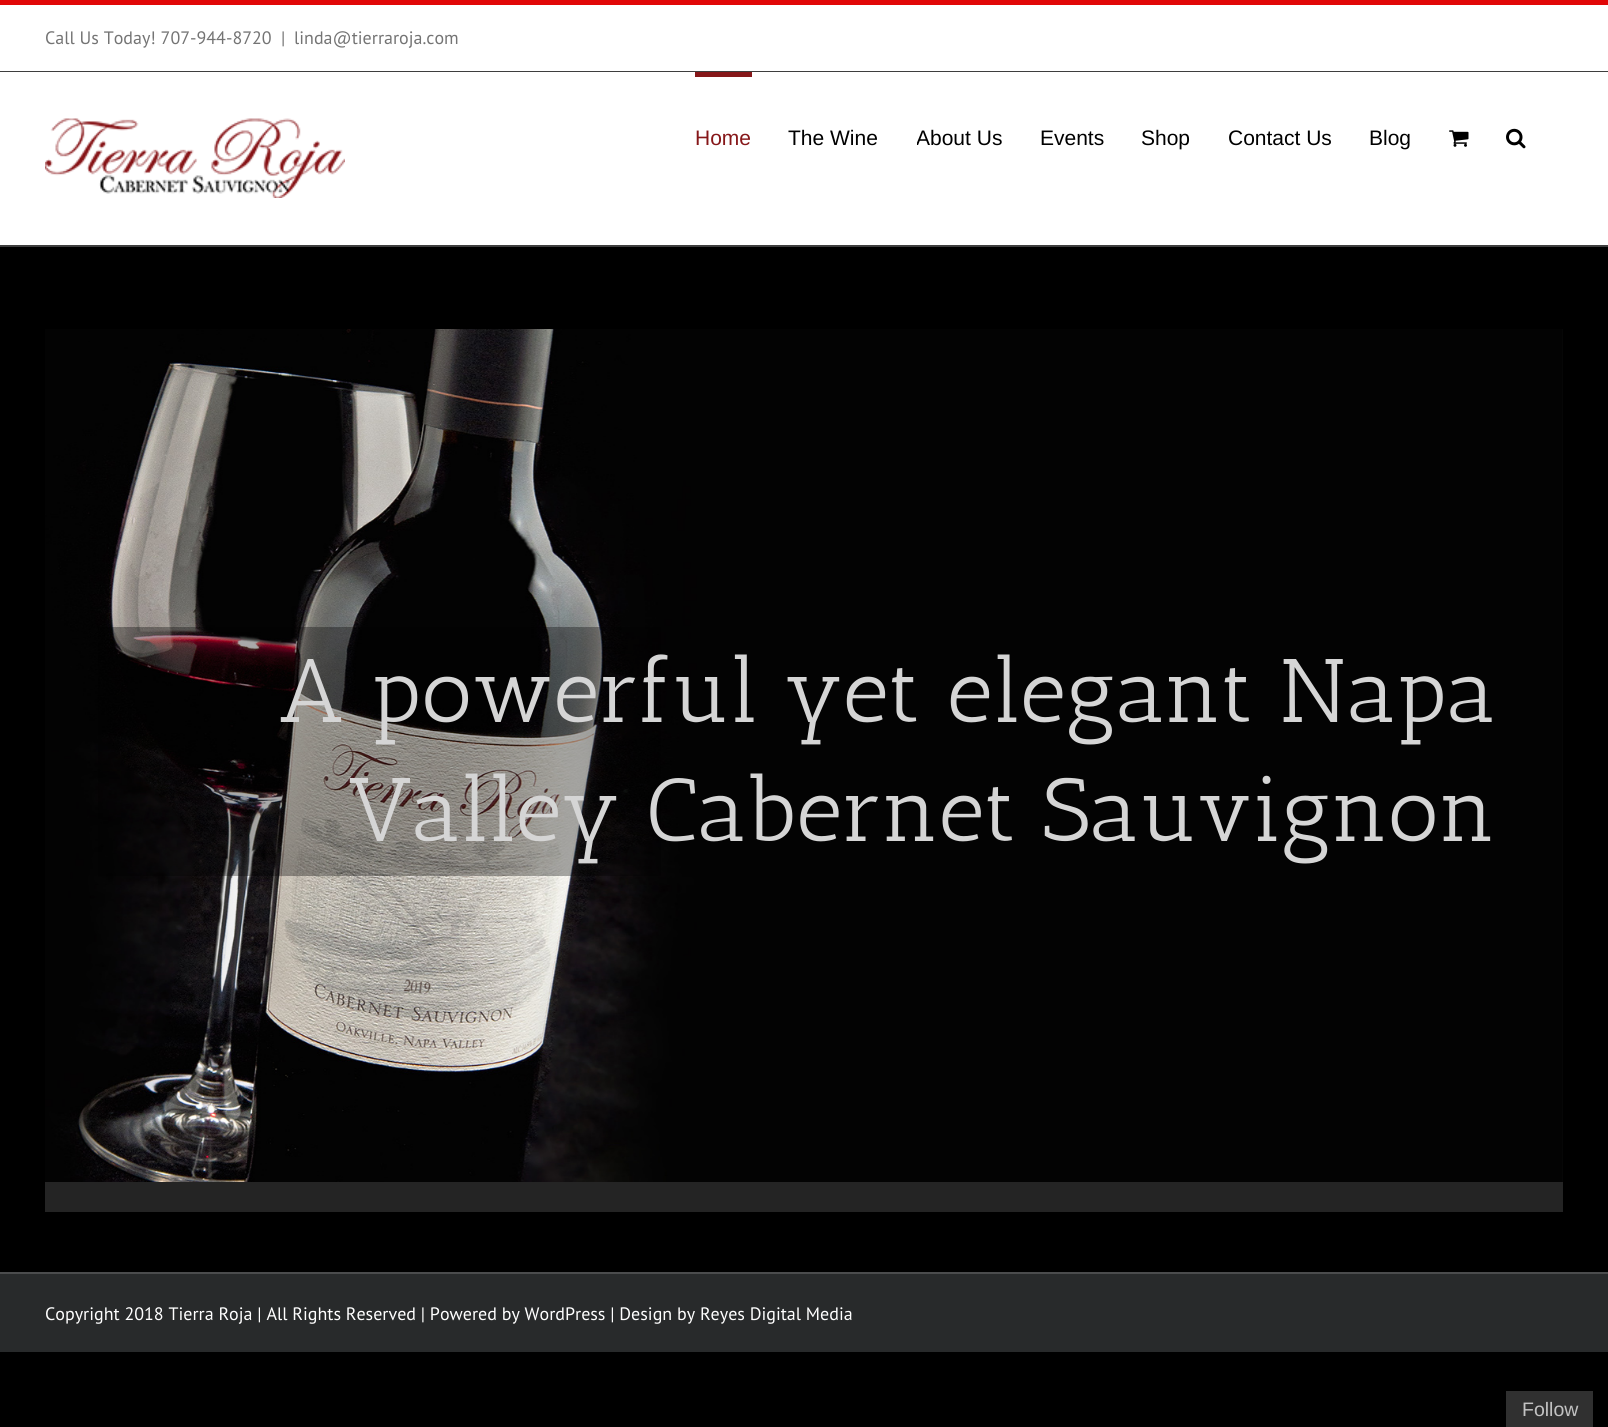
#include <cairo/cairo.h>
#include <math.h>
#include <stddef.h>

typedef struct { double x, y; const char *s; } line_t;
typedef struct { double x, y, w, h; unsigned color; } box_t;
static cairo_t *cr;

static void rgb(unsigned color)
{
	cairo_set_source_rgb(cr, (color >> 16) / 255.0, (color >> 8 & 255) / 255.0, (color & 255) / 255.0);
}

static void image(const char *path, double x, double y, double w, double h)
{
	cairo_surface_t *image = cairo_image_surface_create_from_png(path);
	cairo_save(cr);
	cairo_set_source_surface(cr, image, x, y);
	cairo_rectangle(cr, x, y, w, h);
	cairo_fill(cr);
	cairo_restore(cr);
	cairo_surface_destroy(image);
}

int main(void) {
	cairo_surface_t *surface = cairo_image_surface_create(CAIRO_FORMAT_RGB24, 1608, 1427);
	cr = cairo_create(surface);
	cairo_font_options_t *options = cairo_font_options_create();
	cairo_font_options_set_hint_metrics(options, CAIRO_HINT_METRICS_OFF);
	cairo_font_options_set_hint_style(options, CAIRO_HINT_STYLE_NONE);
	cairo_set_font_options(cr, options);
	cairo_set_miter_limit(cr, 4);
	rgb(0x000000);
	cairo_paint(cr);
	{
		static const box_t items[] = {
			{0, 5, 1608, 66, 0xffffff},
			{0, 0, 1608, 5, 0xe10707},
			{0, 71, 1608, 1, 0x3e3e3e},
			{0, 72, 1608, 173, 0xffffff},
			{0, 245, 1608, 2, 0x3e3e3e},
		};
		for (size_t i = 0; i < sizeof items / sizeof *items; i++) {
			rgb(items[i].color);
			cairo_rectangle(cr, items[i].x, items[i].y, items[i].w, items[i].h);
			cairo_fill(cr);
		}
	}
	image("img/1.png", 45, 118, 300, 80);
	rgb(0x861719);
	cairo_rectangle(cr, 695, 72, 57, 5);
	cairo_fill(cr);
	image("img/2.png", 1449, 130, 20, 17);
	image("img/3.png", 1506, 128, 20, 21);
	rgb(0x242424);
	cairo_rectangle(cr, 45, 329, 1518, 883);
	cairo_fill(cr);
	image("img/4.png", 45, 329, 1518, 853);
	cairo_set_source_rgba(cr, 0, 0, 0, 0.33);
	cairo_rectangle(cr, 98, 627, 563, 249);
	cairo_fill(cr);
	rgb(0x282a2b);
	cairo_rectangle(cr, 0, 1274, 1608, 78);
	cairo_fill(cr);
	rgb(0x4b4c4d);
	cairo_rectangle(cr, 0, 1272, 1608, 2);
	cairo_fill(cr);
	rgb(0x303030);
	cairo_rectangle(cr, 1506, 1391, 87, 36);
	cairo_fill(cr);
	cairo_select_font_face(cr, "PT Sans", CAIRO_FONT_SLANT_NORMAL, CAIRO_FONT_WEIGHT_NORMAL);
	cairo_set_font_size(cr, 18);
	rgb(0x747474);
	{
		static const line_t items[] = {
			{45, 44, "Call Us Today! 707-944-8720"},
			{281, 44, "|"},
			{294, 44, "linda@tierraroja.com"},
		};
		for (size_t i = 0; i < sizeof items / sizeof *items; i++) {
			cairo_move_to(cr, items[i].x, items[i].y);
			cairo_show_text(cr, items[i].s);
		}
	}
	cairo_select_font_face(cr, "Liberation Sans", CAIRO_FONT_SLANT_NORMAL, CAIRO_FONT_WEIGHT_NORMAL);
	cairo_set_font_size(cr, 21);
	rgb(0x861719);
	cairo_move_to(cr, 695, 145);
	cairo_show_text(cr, "Home");
	rgb(0x000000);
	cairo_move_to(cr, 788, 145);
	cairo_show_text(cr, "The Wine");
	cairo_save(cr);
	cairo_rectangle(cr, 917, 72, 123, 126);
	cairo_clip(cr);
	cairo_move_to(cr, 916, 145);
	cairo_show_text(cr, "About Us");
	cairo_restore(cr);
	{
		static const line_t items[] = {
			{1040, 145, "Events"},
			{1141, 145, "Shop"},
			{1228, 145, "Contact Us"},
			{1369, 145, "Blog"},
		};
		for (size_t i = 0; i < sizeof items / sizeof *items; i++) {
			cairo_move_to(cr, items[i].x, items[i].y);
			cairo_show_text(cr, items[i].s);
		}
	}
	cairo_select_font_face(cr, "Antic Slab", CAIRO_FONT_SLANT_NORMAL, CAIRO_FONT_WEIGHT_NORMAL);
	cairo_set_font_size(cr, 90);
	rgb(0xd5d5d5);
	cairo_move_to(cr, 279, 722);
	cairo_show_text(cr, "A powerful yet elegant Napa");
	cairo_move_to(cr, 348, 841);
	cairo_show_text(cr, "Valley Cabernet Sauvignon");
	cairo_select_font_face(cr, "PT Sans", CAIRO_FONT_SLANT_NORMAL, CAIRO_FONT_WEIGHT_NORMAL);
	cairo_set_font_size(cr, 18);
	rgb(0xffffff);
	cairo_move_to(cr, 45, 1320);
	cairo_show_text(cr, "Copyright 2018 Tierra Roja | All Rights Reserved | Powered by WordPress | Design by Reyes Digital Media");
	cairo_select_font_face(cr, "Liberation Sans", CAIRO_FONT_SLANT_NORMAL, CAIRO_FONT_WEIGHT_NORMAL);
	cairo_set_font_size(cr, 19.5);
	rgb(0xc2c2c2);
	cairo_move_to(cr, 1522, 1416);
	cairo_show_text(cr, "Follow");
	cairo_surface_write_to_png(surface, "page.png");
	cairo_font_options_destroy(options);
	cairo_destroy(cr);
	cairo_surface_destroy(surface);
	return 0;
}
